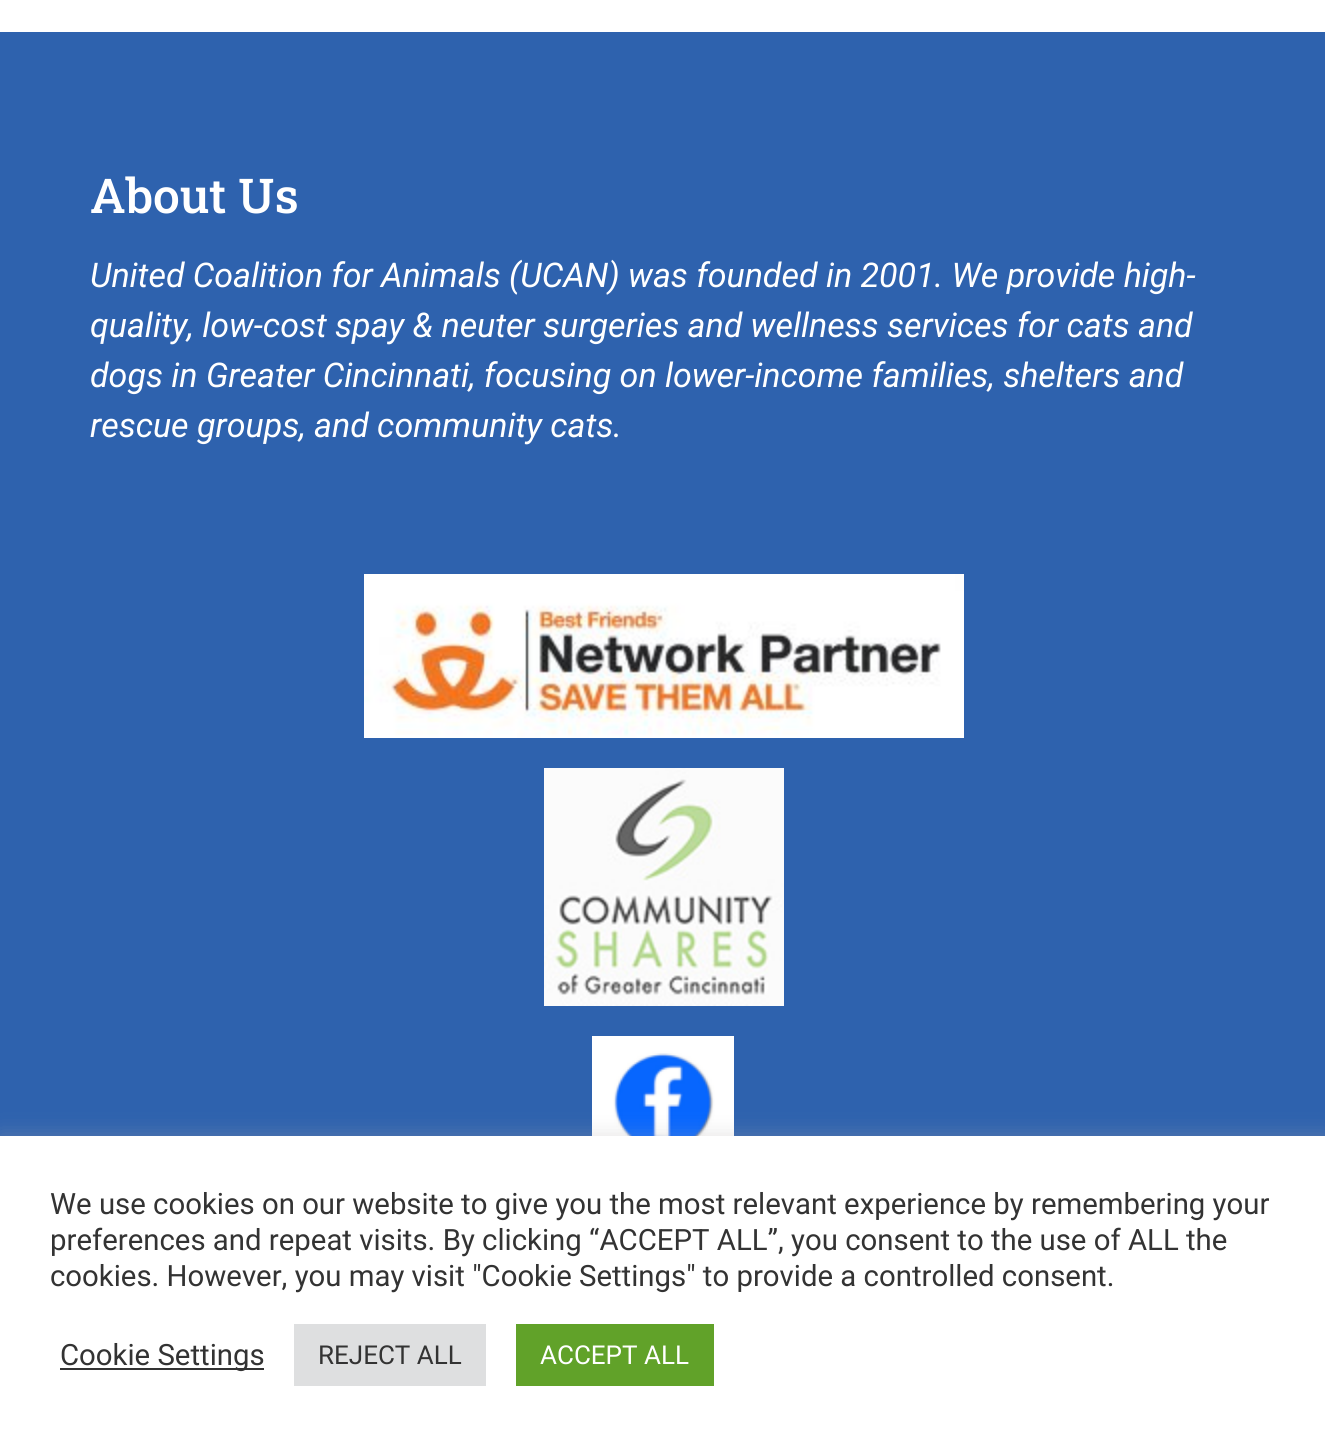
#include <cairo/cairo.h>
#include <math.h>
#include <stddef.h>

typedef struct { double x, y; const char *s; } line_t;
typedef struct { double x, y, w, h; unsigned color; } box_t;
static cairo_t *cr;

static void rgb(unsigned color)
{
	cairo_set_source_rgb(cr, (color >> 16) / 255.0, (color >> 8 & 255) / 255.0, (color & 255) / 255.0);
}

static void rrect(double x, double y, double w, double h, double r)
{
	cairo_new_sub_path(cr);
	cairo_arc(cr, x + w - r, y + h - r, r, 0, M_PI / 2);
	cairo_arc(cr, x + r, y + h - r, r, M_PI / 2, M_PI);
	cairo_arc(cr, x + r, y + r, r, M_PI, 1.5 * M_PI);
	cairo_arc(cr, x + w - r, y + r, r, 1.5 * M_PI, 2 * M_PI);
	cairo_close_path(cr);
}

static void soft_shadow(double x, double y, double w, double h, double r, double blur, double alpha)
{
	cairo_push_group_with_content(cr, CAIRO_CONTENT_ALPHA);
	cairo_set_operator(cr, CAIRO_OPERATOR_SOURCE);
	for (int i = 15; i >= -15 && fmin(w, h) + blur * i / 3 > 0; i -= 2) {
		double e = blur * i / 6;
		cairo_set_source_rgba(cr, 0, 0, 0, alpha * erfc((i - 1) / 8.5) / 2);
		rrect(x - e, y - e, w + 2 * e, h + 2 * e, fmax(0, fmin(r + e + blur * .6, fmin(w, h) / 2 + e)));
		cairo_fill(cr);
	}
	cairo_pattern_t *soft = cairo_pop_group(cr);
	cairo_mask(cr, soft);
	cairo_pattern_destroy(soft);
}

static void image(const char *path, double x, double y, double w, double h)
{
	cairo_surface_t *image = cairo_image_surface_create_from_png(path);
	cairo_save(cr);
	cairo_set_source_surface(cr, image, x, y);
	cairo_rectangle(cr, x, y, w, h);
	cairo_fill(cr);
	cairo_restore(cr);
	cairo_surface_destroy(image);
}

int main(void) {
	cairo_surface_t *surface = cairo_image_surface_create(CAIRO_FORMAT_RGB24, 1325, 1445);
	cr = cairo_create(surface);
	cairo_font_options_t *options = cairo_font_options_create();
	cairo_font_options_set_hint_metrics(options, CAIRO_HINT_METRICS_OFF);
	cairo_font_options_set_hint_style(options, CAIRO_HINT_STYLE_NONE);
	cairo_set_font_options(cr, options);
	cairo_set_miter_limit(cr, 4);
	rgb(0xffffff);
	cairo_paint(cr);
	rgb(0x2e62ae);
	cairo_rectangle(cr, 0, 32, 1325, 1104);
	cairo_fill(cr);
	image("img/1.png", 364, 574, 600, 164);
	image("img/2.png", 544, 768, 240, 238);
	image("img/3.png", 592, 1036, 142, 100);
	rgb(0xacabab);
	soft_shadow(0, 1134, 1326, 310, 0, 10, 0.3);
	{
		static const box_t items[] = {
			{0, 1136, 1325, 309, 0xffffff},
			{60, 1368, 204, 2, 0x333333},
			{294, 1324, 192, 62, 0xdedfe0},
			{516, 1324, 198, 62, 0x61a229},
		};
		for (size_t i = 0; i < sizeof items / sizeof *items; i++) {
			rgb(items[i].color);
			cairo_rectangle(cr, items[i].x, items[i].y, items[i].w, items[i].h);
			cairo_fill(cr);
		}
	}
	cairo_select_font_face(cr, "Roboto Slab Medium", CAIRO_FONT_SLANT_NORMAL, CAIRO_FONT_WEIGHT_NORMAL);
	cairo_set_font_size(cr, 48);
	rgb(0xffffff);
	cairo_move_to(cr, 90, 213);
	cairo_show_text(cr, "About Us");
	cairo_select_font_face(cr, "Roboto", CAIRO_FONT_SLANT_ITALIC, CAIRO_FONT_WEIGHT_NORMAL);
	cairo_set_font_size(cr, 34);
	{
		static const line_t items[] = {
			{90, 287, "United Coalition for Animals (UCAN) was founded in 2001. We provide high-"},
			{90, 337, "quality, low-cost spay & neuter surgeries and wellness services for cats and"},
			{90, 387, "dogs in Greater Cincinnati, focusing on lower-income families, shelters and"},
			{90, 437, "rescue groups, and community cats."},
		};
		for (size_t i = 0; i < sizeof items / sizeof *items; i++) {
			cairo_move_to(cr, items[i].x, items[i].y);
			cairo_show_text(cr, items[i].s);
		}
	}
	cairo_select_font_face(cr, "Roboto", CAIRO_FONT_SLANT_NORMAL, CAIRO_FONT_WEIGHT_NORMAL);
	cairo_set_font_size(cr, 29.35);
	rgb(0x333333);
	{
		static const line_t items[] = {
			{50, 1214, "We use cookies on our website to give you the most relevant experience by remembering your"},
			{50, 1250, "preferences and repeat visits. By clicking “ACCEPT ALL”, you consent to the use of ALL the"},
			{50, 1286, "cookies. However, you may visit \"Cookie Settings\" to provide a controlled consent."},
			{60, 1365, "Cookie Settings"},
		};
		for (size_t i = 0; i < sizeof items / sizeof *items; i++) {
			cairo_move_to(cr, items[i].x, items[i].y);
			cairo_show_text(cr, items[i].s);
		}
	}
	cairo_set_font_size(cr, 26);
	cairo_move_to(cr, 318, 1364);
	cairo_show_text(cr, "REJECT ALL");
	rgb(0xffffff);
	cairo_move_to(cr, 540, 1364);
	cairo_show_text(cr, "ACCEPT ALL");
	cairo_surface_write_to_png(surface, "page.png");
	cairo_font_options_destroy(options);
	cairo_destroy(cr);
	cairo_surface_destroy(surface);
	return 0;
}
